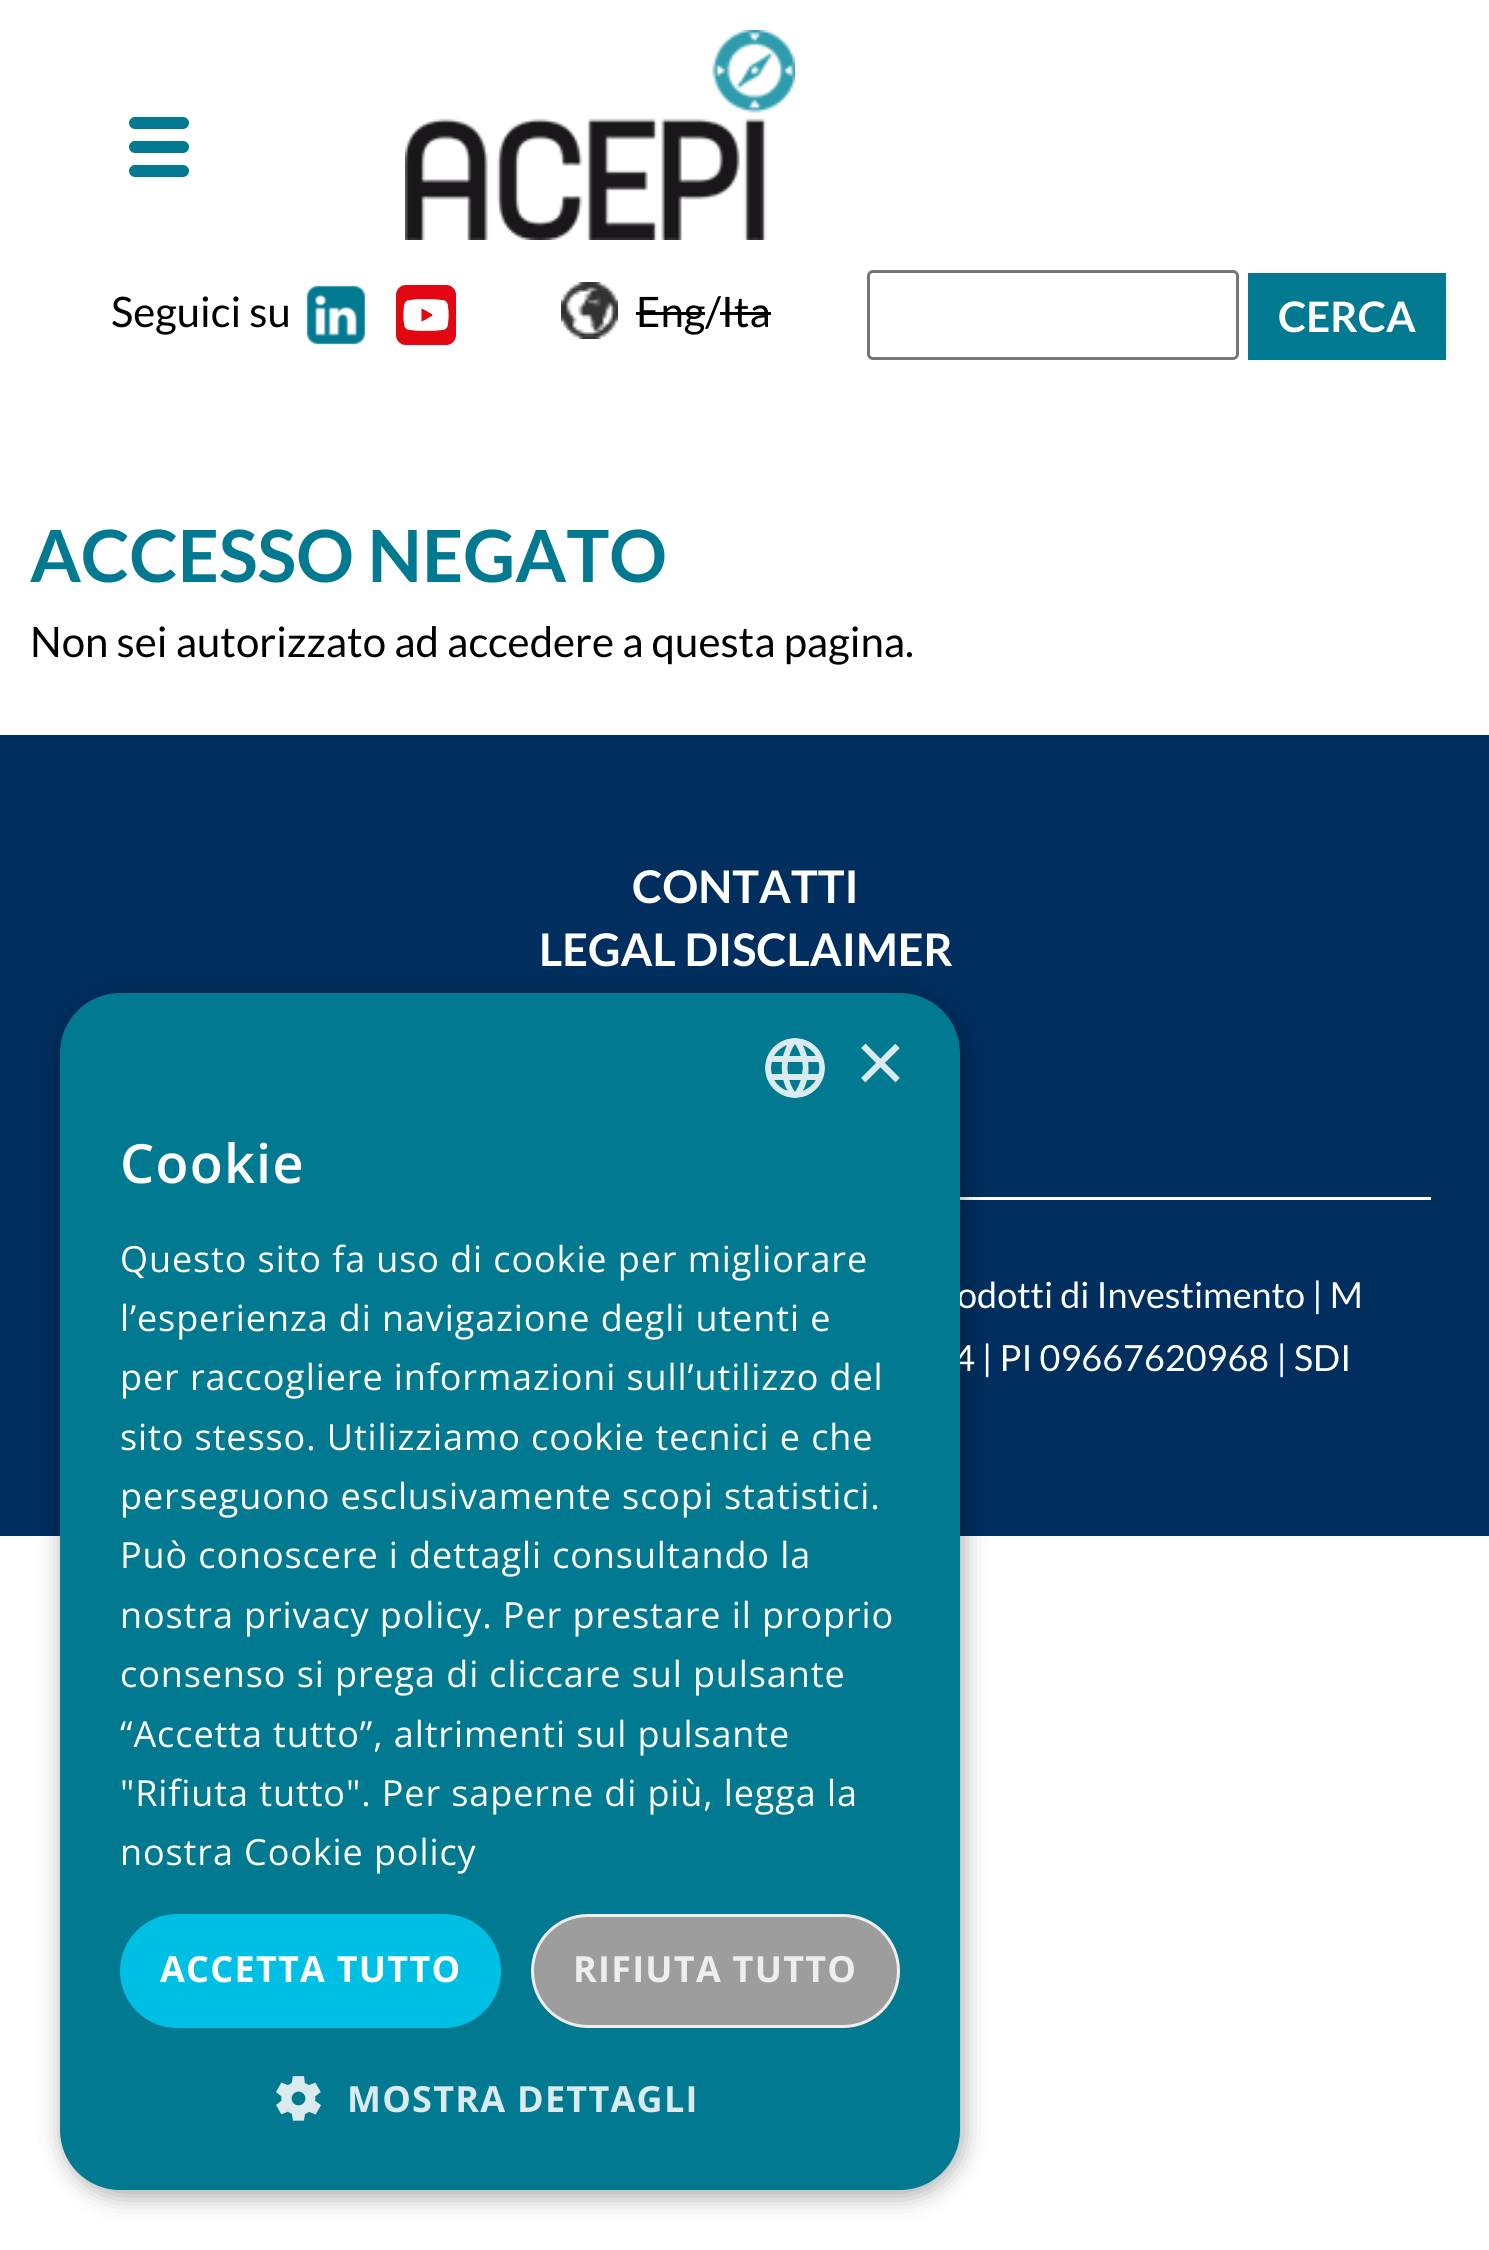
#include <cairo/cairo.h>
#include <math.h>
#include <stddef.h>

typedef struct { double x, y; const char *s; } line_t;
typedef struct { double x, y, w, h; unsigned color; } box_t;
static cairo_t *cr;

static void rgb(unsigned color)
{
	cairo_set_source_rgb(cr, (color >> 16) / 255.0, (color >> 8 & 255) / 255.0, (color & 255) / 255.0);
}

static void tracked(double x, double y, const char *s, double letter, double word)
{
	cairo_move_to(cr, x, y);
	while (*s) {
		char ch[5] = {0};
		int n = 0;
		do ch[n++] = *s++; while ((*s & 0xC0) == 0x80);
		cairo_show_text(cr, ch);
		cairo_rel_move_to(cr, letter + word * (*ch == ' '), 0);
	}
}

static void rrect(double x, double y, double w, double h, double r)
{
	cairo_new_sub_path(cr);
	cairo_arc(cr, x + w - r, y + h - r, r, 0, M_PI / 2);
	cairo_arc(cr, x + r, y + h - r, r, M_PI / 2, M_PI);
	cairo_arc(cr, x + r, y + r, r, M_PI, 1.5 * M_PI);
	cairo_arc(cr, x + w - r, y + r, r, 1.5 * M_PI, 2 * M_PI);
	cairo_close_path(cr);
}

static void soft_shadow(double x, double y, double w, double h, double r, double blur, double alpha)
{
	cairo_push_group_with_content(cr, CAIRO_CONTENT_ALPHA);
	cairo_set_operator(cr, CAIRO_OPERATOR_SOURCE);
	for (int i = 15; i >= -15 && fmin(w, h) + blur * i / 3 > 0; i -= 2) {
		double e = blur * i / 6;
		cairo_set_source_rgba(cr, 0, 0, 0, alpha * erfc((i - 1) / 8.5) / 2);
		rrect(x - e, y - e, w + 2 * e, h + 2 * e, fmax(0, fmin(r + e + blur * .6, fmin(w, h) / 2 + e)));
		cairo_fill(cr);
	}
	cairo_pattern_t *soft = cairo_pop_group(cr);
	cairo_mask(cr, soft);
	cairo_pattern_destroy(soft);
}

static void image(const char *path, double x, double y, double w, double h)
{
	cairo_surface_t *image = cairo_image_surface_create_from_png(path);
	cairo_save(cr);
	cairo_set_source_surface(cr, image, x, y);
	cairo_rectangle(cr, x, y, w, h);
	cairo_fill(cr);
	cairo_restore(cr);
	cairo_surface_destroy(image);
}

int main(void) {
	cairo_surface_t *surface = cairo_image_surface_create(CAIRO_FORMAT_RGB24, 1489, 2250);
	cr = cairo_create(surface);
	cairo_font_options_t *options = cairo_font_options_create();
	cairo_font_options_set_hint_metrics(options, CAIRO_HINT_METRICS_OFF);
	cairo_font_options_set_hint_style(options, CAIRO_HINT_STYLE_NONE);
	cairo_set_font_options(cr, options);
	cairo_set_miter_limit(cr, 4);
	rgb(0xffffff);
	cairo_paint(cr);
	image("img/1.png", 405, 30, 390, 210);
	rgb(0x017990);
	rrect(129, 141, 60, 12, 6);
	cairo_fill(cr);
	rrect(129, 117, 60, 12, 6);
	cairo_fill(cr);
	rrect(129, 165, 60, 12, 6);
	cairo_fill(cr);
	image("img/2.png", 306, 285, 60, 60);
	image("img/3.png", 396, 285, 60, 60);
	image("img/4.png", 561, 282, 57, 57);
	rgb(0x000000);
	cairo_rectangle(cr, 636, 312, 69, 3);
	cairo_fill(cr);
	cairo_rectangle(cr, 720, 312, 51, 3);
	cairo_fill(cr);
	rrect(868.5, 271.5, 369, 87, 4.5);
	rgb(0x767676);
	cairo_set_line_width(cr, 3);
	cairo_stroke(cr);
	{
		static const box_t items[] = {
			{1248, 273, 198, 87, 0x017990},
			{0, 735, 1489, 801, 0x002e5e},
			{960, 1197, 471, 3, 0xffffff},
		};
		for (size_t i = 0; i < sizeof items / sizeof *items; i++) {
			rgb(items[i].color);
			cairo_rectangle(cr, items[i].x, items[i].y, items[i].w, items[i].h);
			cairo_fill(cr);
		}
	}
	rgb(0x000000);
	soft_shadow(63, 999, 900, 1197, 60, 12, 0.35);
	cairo_select_font_face(cr, "Lato", CAIRO_FONT_SLANT_NORMAL, CAIRO_FONT_WEIGHT_NORMAL);
	cairo_set_font_size(cr, 42);
	rgb(0x000000);
	cairo_move_to(cr, 111, 327);
	cairo_show_text(cr, "Seguici su");
	cairo_move_to(cr, 636, 327);
	cairo_show_text(cr, "Eng/Ita");
	cairo_select_font_face(cr, "Lato", CAIRO_FONT_SLANT_NORMAL, CAIRO_FONT_WEIGHT_BOLD);
	rgb(0xffffff);
	cairo_move_to(cr, 1278, 332);
	cairo_show_text(cr, "CERCA");
	cairo_set_font_size(cr, 72);
	rgb(0x017990);
	cairo_move_to(cr, 30, 582);
	cairo_show_text(cr, "ACCESSO NEGATO");
	cairo_select_font_face(cr, "Lato", CAIRO_FONT_SLANT_NORMAL, CAIRO_FONT_WEIGHT_NORMAL);
	cairo_set_font_size(cr, 42);
	rgb(0x000000);
	cairo_move_to(cr, 30, 657);
	cairo_show_text(cr, "Non sei autorizzato ad accedere a questa pagina.");
	cairo_select_font_face(cr, "Lato", CAIRO_FONT_SLANT_NORMAL, CAIRO_FONT_WEIGHT_BOLD);
	cairo_set_font_size(cr, 45);
	rgb(0xffffff);
	cairo_move_to(cr, 632, 903);
	cairo_show_text(cr, "CONTATTI");
	cairo_move_to(cr, 539, 966);
	cairo_show_text(cr, "LEGAL DISCLAIMER");
	cairo_select_font_face(cr, "Lato", CAIRO_FONT_SLANT_NORMAL, CAIRO_FONT_WEIGHT_NORMAL);
	cairo_set_font_size(cr, 36);
	cairo_move_to(cr, 957, 1308);
	cairo_show_text(cr, "odotti di Investimento | M");
	cairo_move_to(cr, 954, 1371);
	cairo_show_text(cr, "4 | PI 09667620968 | SDI");
	rgb(0x017990);
	rrect(60, 993, 900, 1197, 60);
	cairo_fill(cr);
	cairo_select_font_face(cr, "Liberation Sans", CAIRO_FONT_SLANT_NORMAL, CAIRO_FONT_WEIGHT_NORMAL);
	cairo_set_font_size(cr, 87);
	rgb(0xd9ebee);
	cairo_move_to(cr, 855, 1092);
	cairo_show_text(cr, "×");
	image("img/6.png", 276, 2076, 45, 45);
	cairo_select_font_face(cr, "Open Sans", CAIRO_FONT_SLANT_NORMAL, CAIRO_FONT_WEIGHT_BOLD);
	cairo_set_font_size(cr, 36);
	tracked(347, 2112, "MOSTRA DETTAGLI", 1.25, 0);
	image("img/5.png", 765, 1038, 60, 60);
	rgb(0x9d9d9d);
	rrect(532.5, 1915.5, 366, 111, 55.5);
	cairo_fill_preserve(cr);
	rgb(0xeeeeee);
	cairo_stroke(cr);
	tracked(573, 1982, "RIFIUTA TUTTO", 1.25, 0);
	rgb(0x00bfe4);
	rrect(120, 1914, 381, 114, 57);
	cairo_fill(cr);
	rgb(0xffffff);
	tracked(160, 1982, "ACCETTA TUTTO", 1.25, 0);
	cairo_select_font_face(cr, "Open Sans", CAIRO_FONT_SLANT_NORMAL, CAIRO_FONT_WEIGHT_NORMAL);
	{
		static const line_t items[] = {
			{120, 1865, "nostra Cookie policy"},
			{120, 1806, "\"Rifiuta tutto\". Per saperne di più, legga la"},
			{120, 1747, "“Accetta tutto”, altrimenti sul pulsante"},
			{120, 1687, "consenso si prega di cliccare sul pulsante"},
			{120, 1628, "nostra privacy policy. Per prestare il proprio"},
			{120, 1568, "Può conoscere i dettagli consultando la"},
			{120, 1509, "perseguono esclusivamente scopi statistici."},
			{120, 1450, "sito stesso. Utilizziamo cookie tecnici e che"},
			{120, 1390, "per raccogliere informazioni sull’utilizzo del"},
			{120, 1331, "l’esperienza di navigazione degli utenti e"},
			{120, 1272, "Questo sito fa uso di cookie per migliorare"},
		};
		for (size_t i = 0; i < sizeof items / sizeof *items; i++) {
			tracked(items[i].x, items[i].y, items[i].s, 0.9, 0);
		}
	}
	cairo_select_font_face(cr, "Open Sans SemiBold", CAIRO_FONT_SLANT_NORMAL, CAIRO_FONT_WEIGHT_NORMAL);
	cairo_set_font_size(cr, 54);
	tracked(120, 1183, "Cookie", 1.25, 0);
	cairo_surface_write_to_png(surface, "page.png");
	cairo_font_options_destroy(options);
	cairo_destroy(cr);
	cairo_surface_destroy(surface);
	return 0;
}
